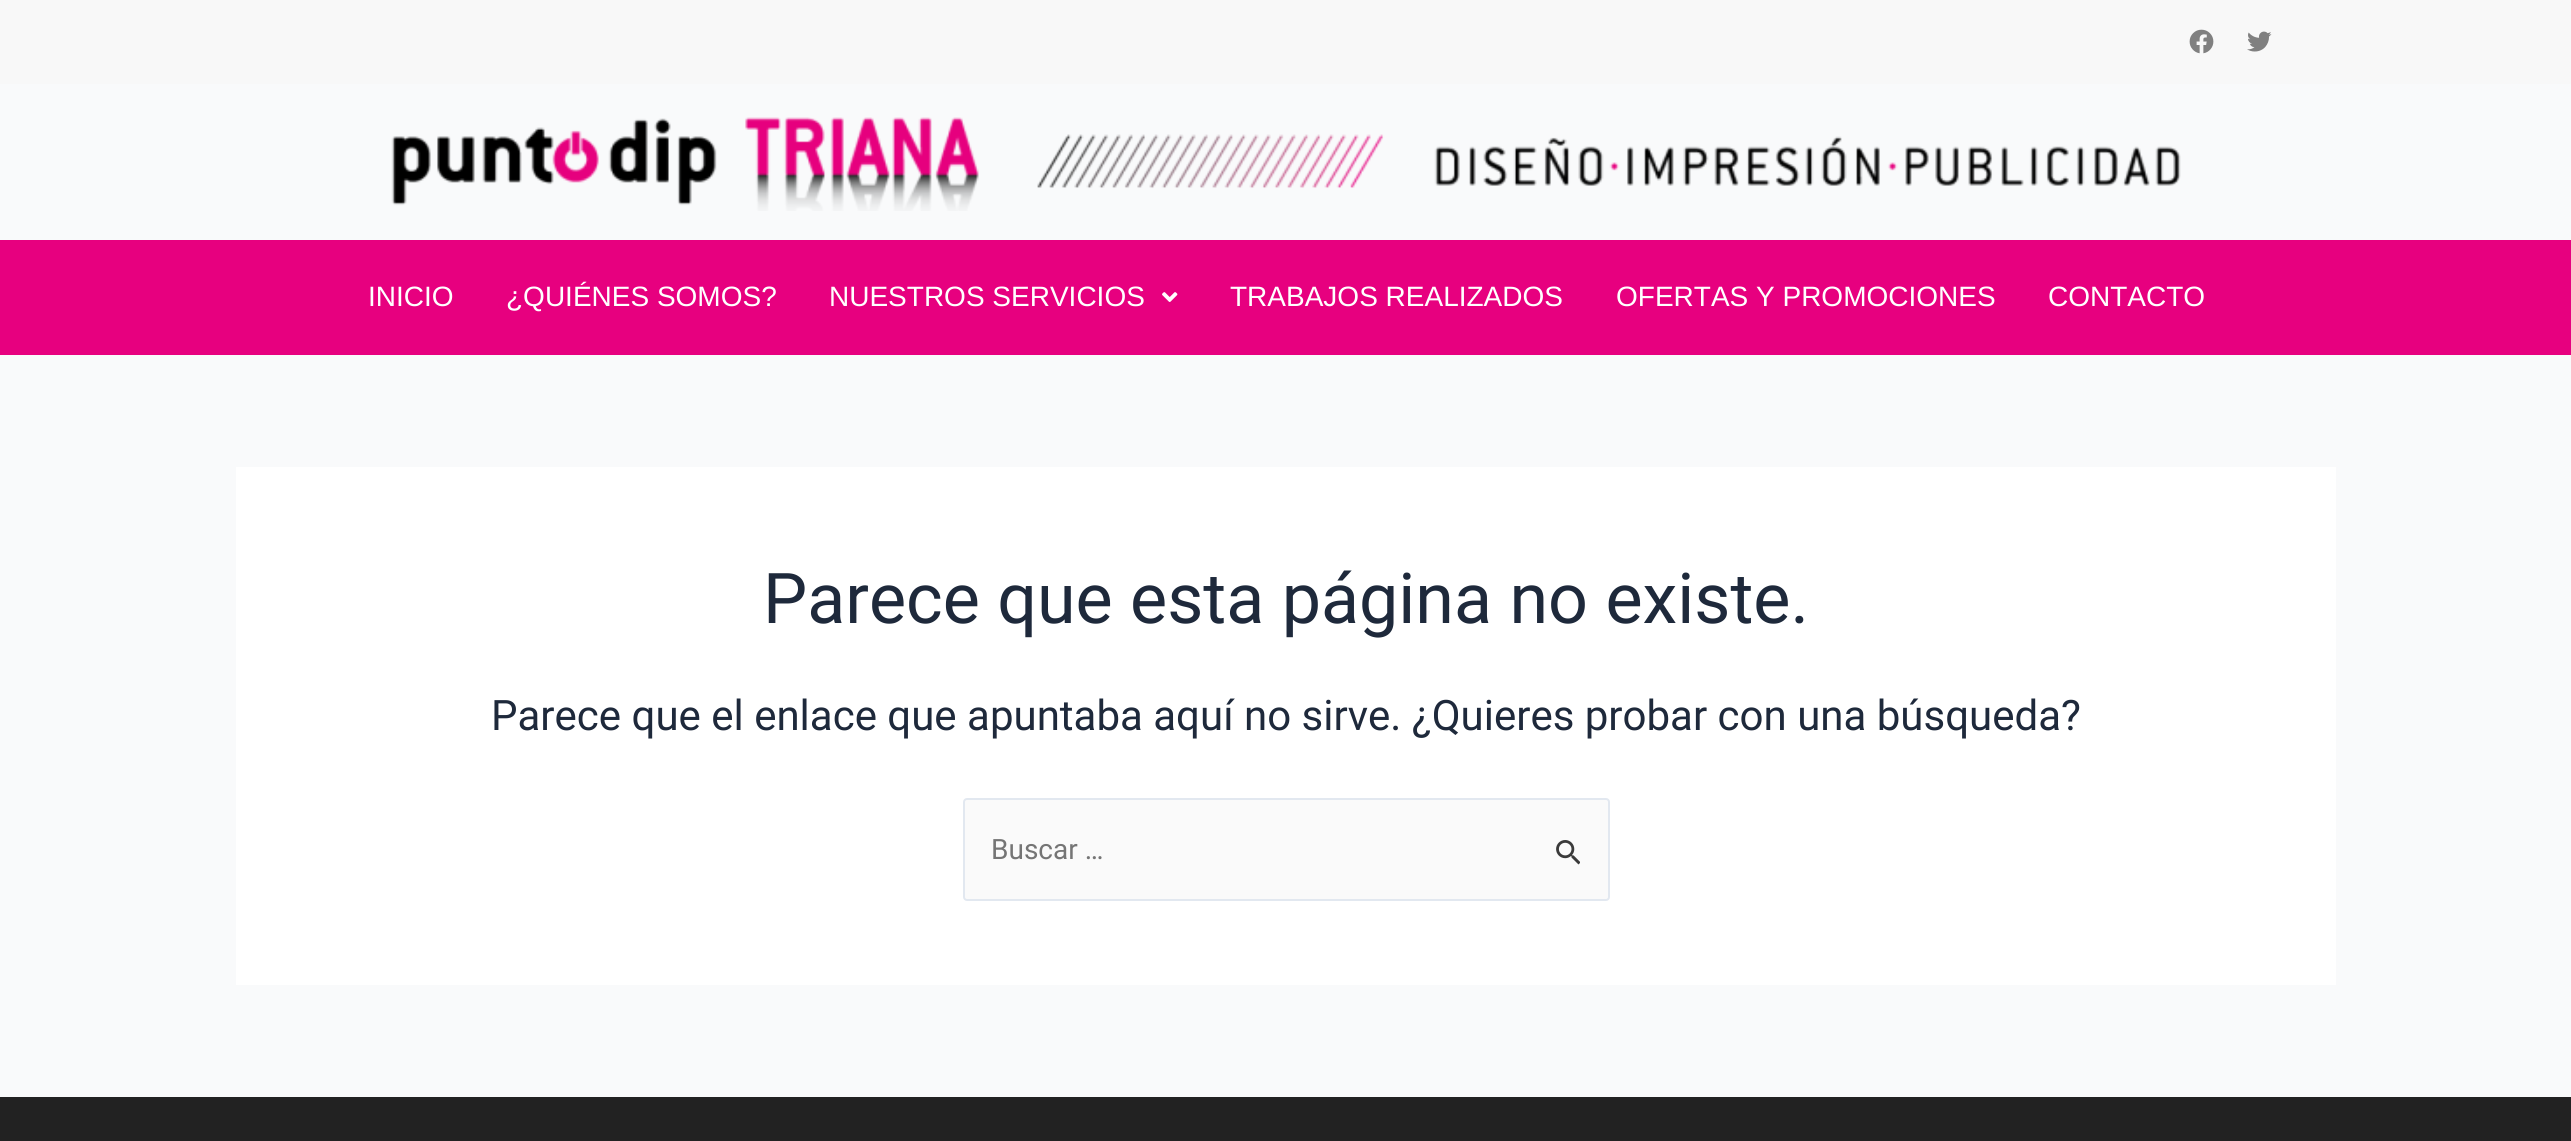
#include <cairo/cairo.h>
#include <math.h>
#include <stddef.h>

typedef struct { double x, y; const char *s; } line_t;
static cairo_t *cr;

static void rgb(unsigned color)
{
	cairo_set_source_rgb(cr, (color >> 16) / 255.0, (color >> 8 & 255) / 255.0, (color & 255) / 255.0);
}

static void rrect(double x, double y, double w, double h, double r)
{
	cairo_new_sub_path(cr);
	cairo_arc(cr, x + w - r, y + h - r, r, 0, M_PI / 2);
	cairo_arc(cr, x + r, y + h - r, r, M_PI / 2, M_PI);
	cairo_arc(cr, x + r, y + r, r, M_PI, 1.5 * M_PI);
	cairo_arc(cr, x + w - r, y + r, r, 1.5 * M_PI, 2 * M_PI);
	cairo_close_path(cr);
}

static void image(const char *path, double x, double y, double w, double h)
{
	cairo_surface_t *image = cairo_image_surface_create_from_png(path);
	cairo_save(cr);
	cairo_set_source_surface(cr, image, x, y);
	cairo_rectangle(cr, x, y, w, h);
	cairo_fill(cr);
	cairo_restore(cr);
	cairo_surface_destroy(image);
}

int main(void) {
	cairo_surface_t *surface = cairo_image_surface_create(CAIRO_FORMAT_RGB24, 2571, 1141);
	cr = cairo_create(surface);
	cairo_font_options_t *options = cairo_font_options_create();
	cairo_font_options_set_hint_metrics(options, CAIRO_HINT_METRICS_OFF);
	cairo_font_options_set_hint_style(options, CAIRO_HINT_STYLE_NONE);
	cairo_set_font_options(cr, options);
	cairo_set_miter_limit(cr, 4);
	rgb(0xf9fafb);
	cairo_paint(cr);
	rgb(0xf8f8f8);
	cairo_rectangle(cr, 0, 0, 2571, 84);
	cairo_fill(cr);
	image("img/1.png", 2189, 29, 25, 25);
	image("img/2.png", 2247, 31, 25, 21);
	image("img/3.png", 391, 117, 1790, 94);
	rgb(0xe7007f);
	cairo_rectangle(cr, 0, 240, 2571, 115);
	cairo_fill(cr);
	image("img/4.png", 1162, 292, 16, 10);
	rgb(0xffffff);
	cairo_rectangle(cr, 236, 467, 2100, 518);
	cairo_fill(cr);
	rgb(0xfafafa);
	rrect(964, 799, 645, 101, 3);
	cairo_fill_preserve(cr);
	rgb(0xe2e8f0);
	cairo_stroke(cr);
	image("img/5.png", 1556, 840, 24, 25);
	rgb(0x222222);
	cairo_rectangle(cr, 0, 1097, 2571, 44);
	cairo_fill(cr);
	cairo_select_font_face(cr, "Liberation Sans", CAIRO_FONT_SLANT_NORMAL, CAIRO_FONT_WEIGHT_NORMAL);
	cairo_set_font_size(cr, 28);
	rgb(0xffffff);
	{
		static const line_t items[] = {
			{368, 306, "INICIO"},
			{506, 306, "¿QUIÉNES SOMOS?"},
			{829, 306, "NUESTROS SERVICIOS"},
			{1230, 306, "TRABAJOS REALIZADOS"},
			{1616, 306, "OFERTAS Y PROMOCIONES"},
			{2048, 306, "CONTACTO"},
		};
		for (size_t i = 0; i < sizeof items / sizeof *items; i++) {
			cairo_move_to(cr, items[i].x, items[i].y);
			cairo_show_text(cr, items[i].s);
		}
	}
	cairo_select_font_face(cr, "Roboto", CAIRO_FONT_SLANT_NORMAL, CAIRO_FONT_WEIGHT_NORMAL);
	cairo_set_font_size(cr, 70);
	rgb(0x1e293b);
	cairo_move_to(cr, 763, 623);
	cairo_show_text(cr, "Parece que esta página no existe.");
	cairo_set_font_size(cr, 42);
	cairo_move_to(cr, 491, 730);
	cairo_show_text(cr, "Parece que el enlace que apuntaba aquí no sirve. ¿Quieres probar con una búsqueda?");
	cairo_set_font_size(cr, 28);
	rgb(0x757575);
	cairo_move_to(cr, 991, 859);
	cairo_show_text(cr, "Buscar …");
	cairo_surface_write_to_png(surface, "page.png");
	cairo_font_options_destroy(options);
	cairo_destroy(cr);
	cairo_surface_destroy(surface);
	return 0;
}
